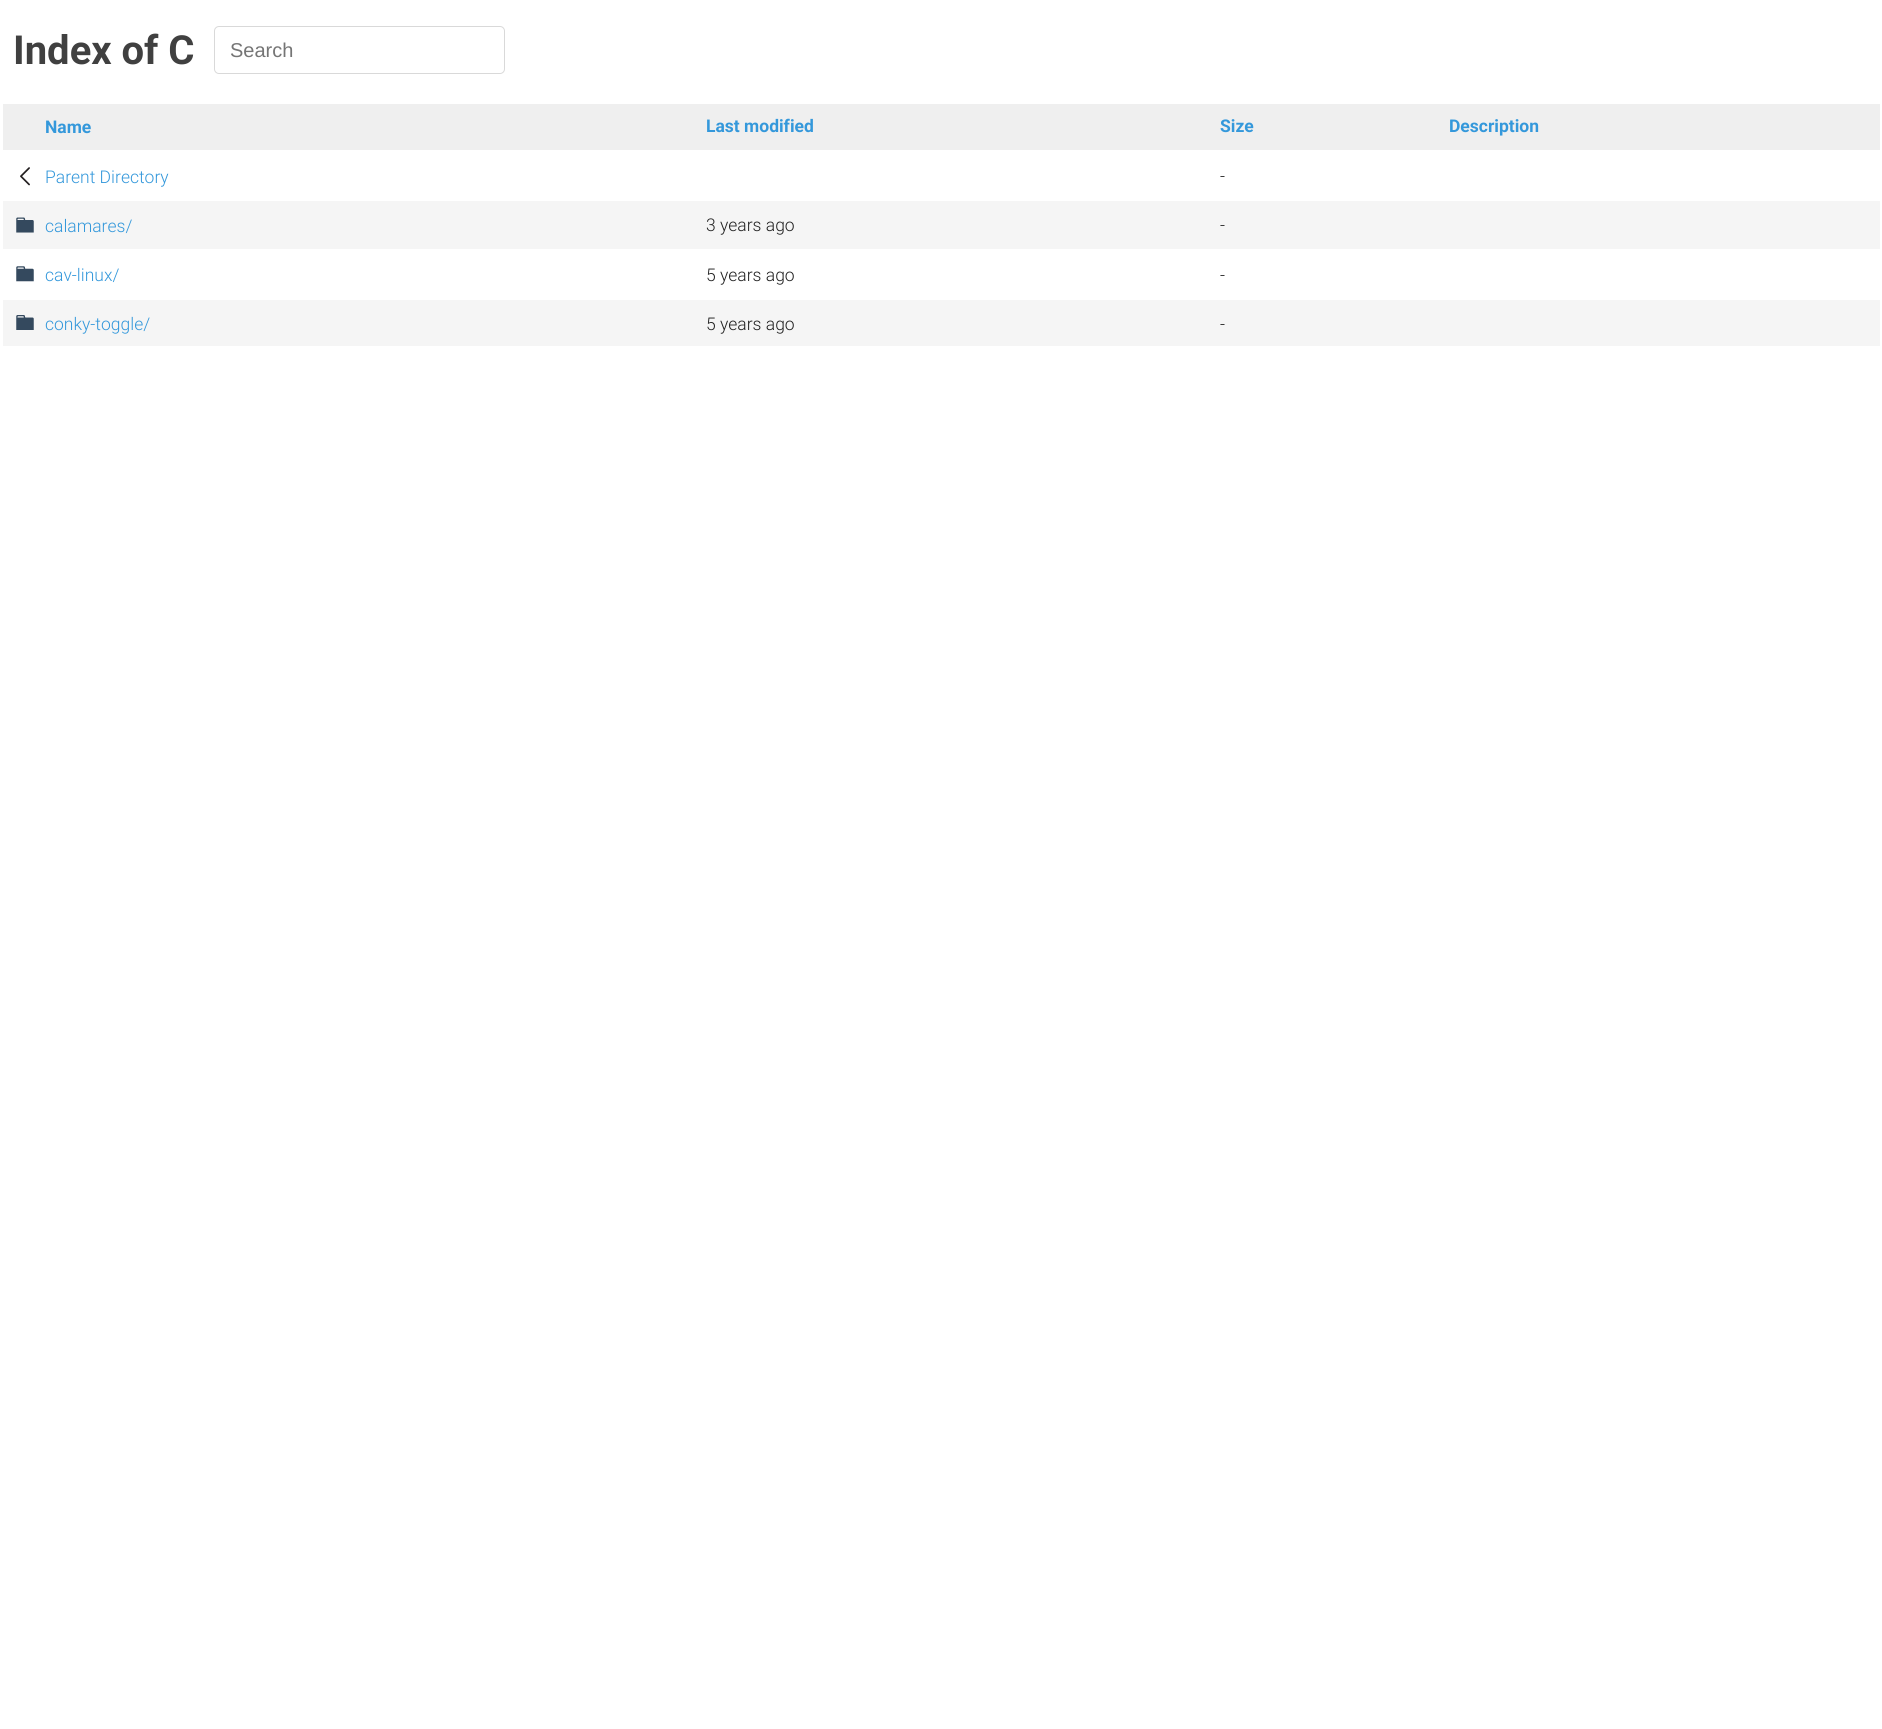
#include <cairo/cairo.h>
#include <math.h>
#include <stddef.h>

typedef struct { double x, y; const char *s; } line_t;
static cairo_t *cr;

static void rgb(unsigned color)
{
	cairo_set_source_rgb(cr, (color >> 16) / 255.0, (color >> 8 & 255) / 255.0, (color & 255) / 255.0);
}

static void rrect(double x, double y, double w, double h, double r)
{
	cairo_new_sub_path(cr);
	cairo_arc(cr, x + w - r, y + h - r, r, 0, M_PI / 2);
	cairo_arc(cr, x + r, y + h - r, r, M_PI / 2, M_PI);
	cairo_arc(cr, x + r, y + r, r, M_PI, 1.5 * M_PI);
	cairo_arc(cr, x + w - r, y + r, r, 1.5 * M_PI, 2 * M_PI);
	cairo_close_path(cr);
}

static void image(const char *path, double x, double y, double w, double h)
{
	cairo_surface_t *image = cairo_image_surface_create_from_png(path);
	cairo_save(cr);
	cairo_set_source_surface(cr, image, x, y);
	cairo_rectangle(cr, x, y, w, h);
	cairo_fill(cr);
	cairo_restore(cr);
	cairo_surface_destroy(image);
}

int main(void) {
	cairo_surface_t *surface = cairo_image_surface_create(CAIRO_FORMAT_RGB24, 1882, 1729);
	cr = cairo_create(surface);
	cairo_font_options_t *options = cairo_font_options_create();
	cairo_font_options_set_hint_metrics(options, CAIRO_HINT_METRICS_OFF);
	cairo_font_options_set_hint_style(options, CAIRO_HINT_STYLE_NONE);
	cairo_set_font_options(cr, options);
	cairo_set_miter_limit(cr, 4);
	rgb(0xffffff);
	cairo_paint(cr);
	rrect(214.5, 26.5, 290, 47, 4.5);
	rgb(0xd9d9d9);
	cairo_set_line_width(cr, 1);
	cairo_stroke(cr);
	rgb(0xefefef);
	cairo_rectangle(cr, 3, 104, 1877, 46);
	cairo_fill(cr);
	image("img/1.png", 20, 167, 10, 19);
	rgb(0xf5f5f5);
	cairo_rectangle(cr, 3, 201, 1877, 48);
	cairo_fill(cr);
	image("img/2.png", 16, 217, 18, 16);
	image("img/3.png", 16, 266, 18, 16);
	cairo_rectangle(cr, 3, 300, 1877, 46);
	cairo_fill(cr);
	image("img/4.png", 16, 315, 18, 15);
	cairo_select_font_face(cr, "Roboto", CAIRO_FONT_SLANT_NORMAL, CAIRO_FONT_WEIGHT_BOLD);
	cairo_set_font_size(cr, 40);
	rgb(0x404040);
	cairo_move_to(cr, 13, 64);
	cairo_show_text(cr, "Index of C");
	cairo_select_font_face(cr, "Liberation Sans", CAIRO_FONT_SLANT_NORMAL, CAIRO_FONT_WEIGHT_NORMAL);
	cairo_set_font_size(cr, 20);
	rgb(0x757575);
	cairo_move_to(cr, 230, 57);
	cairo_show_text(cr, "Search");
	cairo_select_font_face(cr, "Roboto", CAIRO_FONT_SLANT_NORMAL, CAIRO_FONT_WEIGHT_BOLD);
	cairo_set_font_size(cr, 17.5);
	rgb(0x3498db);
	{
		static const line_t items[] = {
			{45, 133, "Name"},
			{706, 132, "Last modified"},
			{1220, 132, "Size"},
			{1449, 132, "Description"},
		};
		for (size_t i = 0; i < sizeof items / sizeof *items; i++) {
			cairo_move_to(cr, items[i].x, items[i].y);
			cairo_show_text(cr, items[i].s);
		}
	}
	cairo_select_font_face(cr, "Roboto Light", CAIRO_FONT_SLANT_NORMAL, CAIRO_FONT_WEIGHT_NORMAL);
	cairo_move_to(cr, 45, 183);
	cairo_show_text(cr, "Parent Directory");
	rgb(0x222222);
	cairo_move_to(cr, 1220, 182);
	cairo_show_text(cr, "-");
	rgb(0x3498db);
	cairo_move_to(cr, 45, 232);
	cairo_show_text(cr, "calamares/");
	rgb(0x222222);
	cairo_move_to(cr, 706, 231);
	cairo_show_text(cr, "3 years ago");
	cairo_move_to(cr, 1220, 231);
	cairo_show_text(cr, "-");
	rgb(0x3498db);
	cairo_move_to(cr, 45, 281);
	cairo_show_text(cr, "cav-linux/");
	rgb(0x222222);
	cairo_move_to(cr, 706, 281);
	cairo_show_text(cr, "5 years ago");
	cairo_move_to(cr, 1220, 281);
	cairo_show_text(cr, "-");
	rgb(0x3498db);
	cairo_move_to(cr, 45, 330);
	cairo_show_text(cr, "conky-toggle/");
	rgb(0x222222);
	cairo_move_to(cr, 706, 330);
	cairo_show_text(cr, "5 years ago");
	cairo_move_to(cr, 1220, 330);
	cairo_show_text(cr, "-");
	cairo_surface_write_to_png(surface, "page.png");
	cairo_font_options_destroy(options);
	cairo_destroy(cr);
	cairo_surface_destroy(surface);
	return 0;
}
